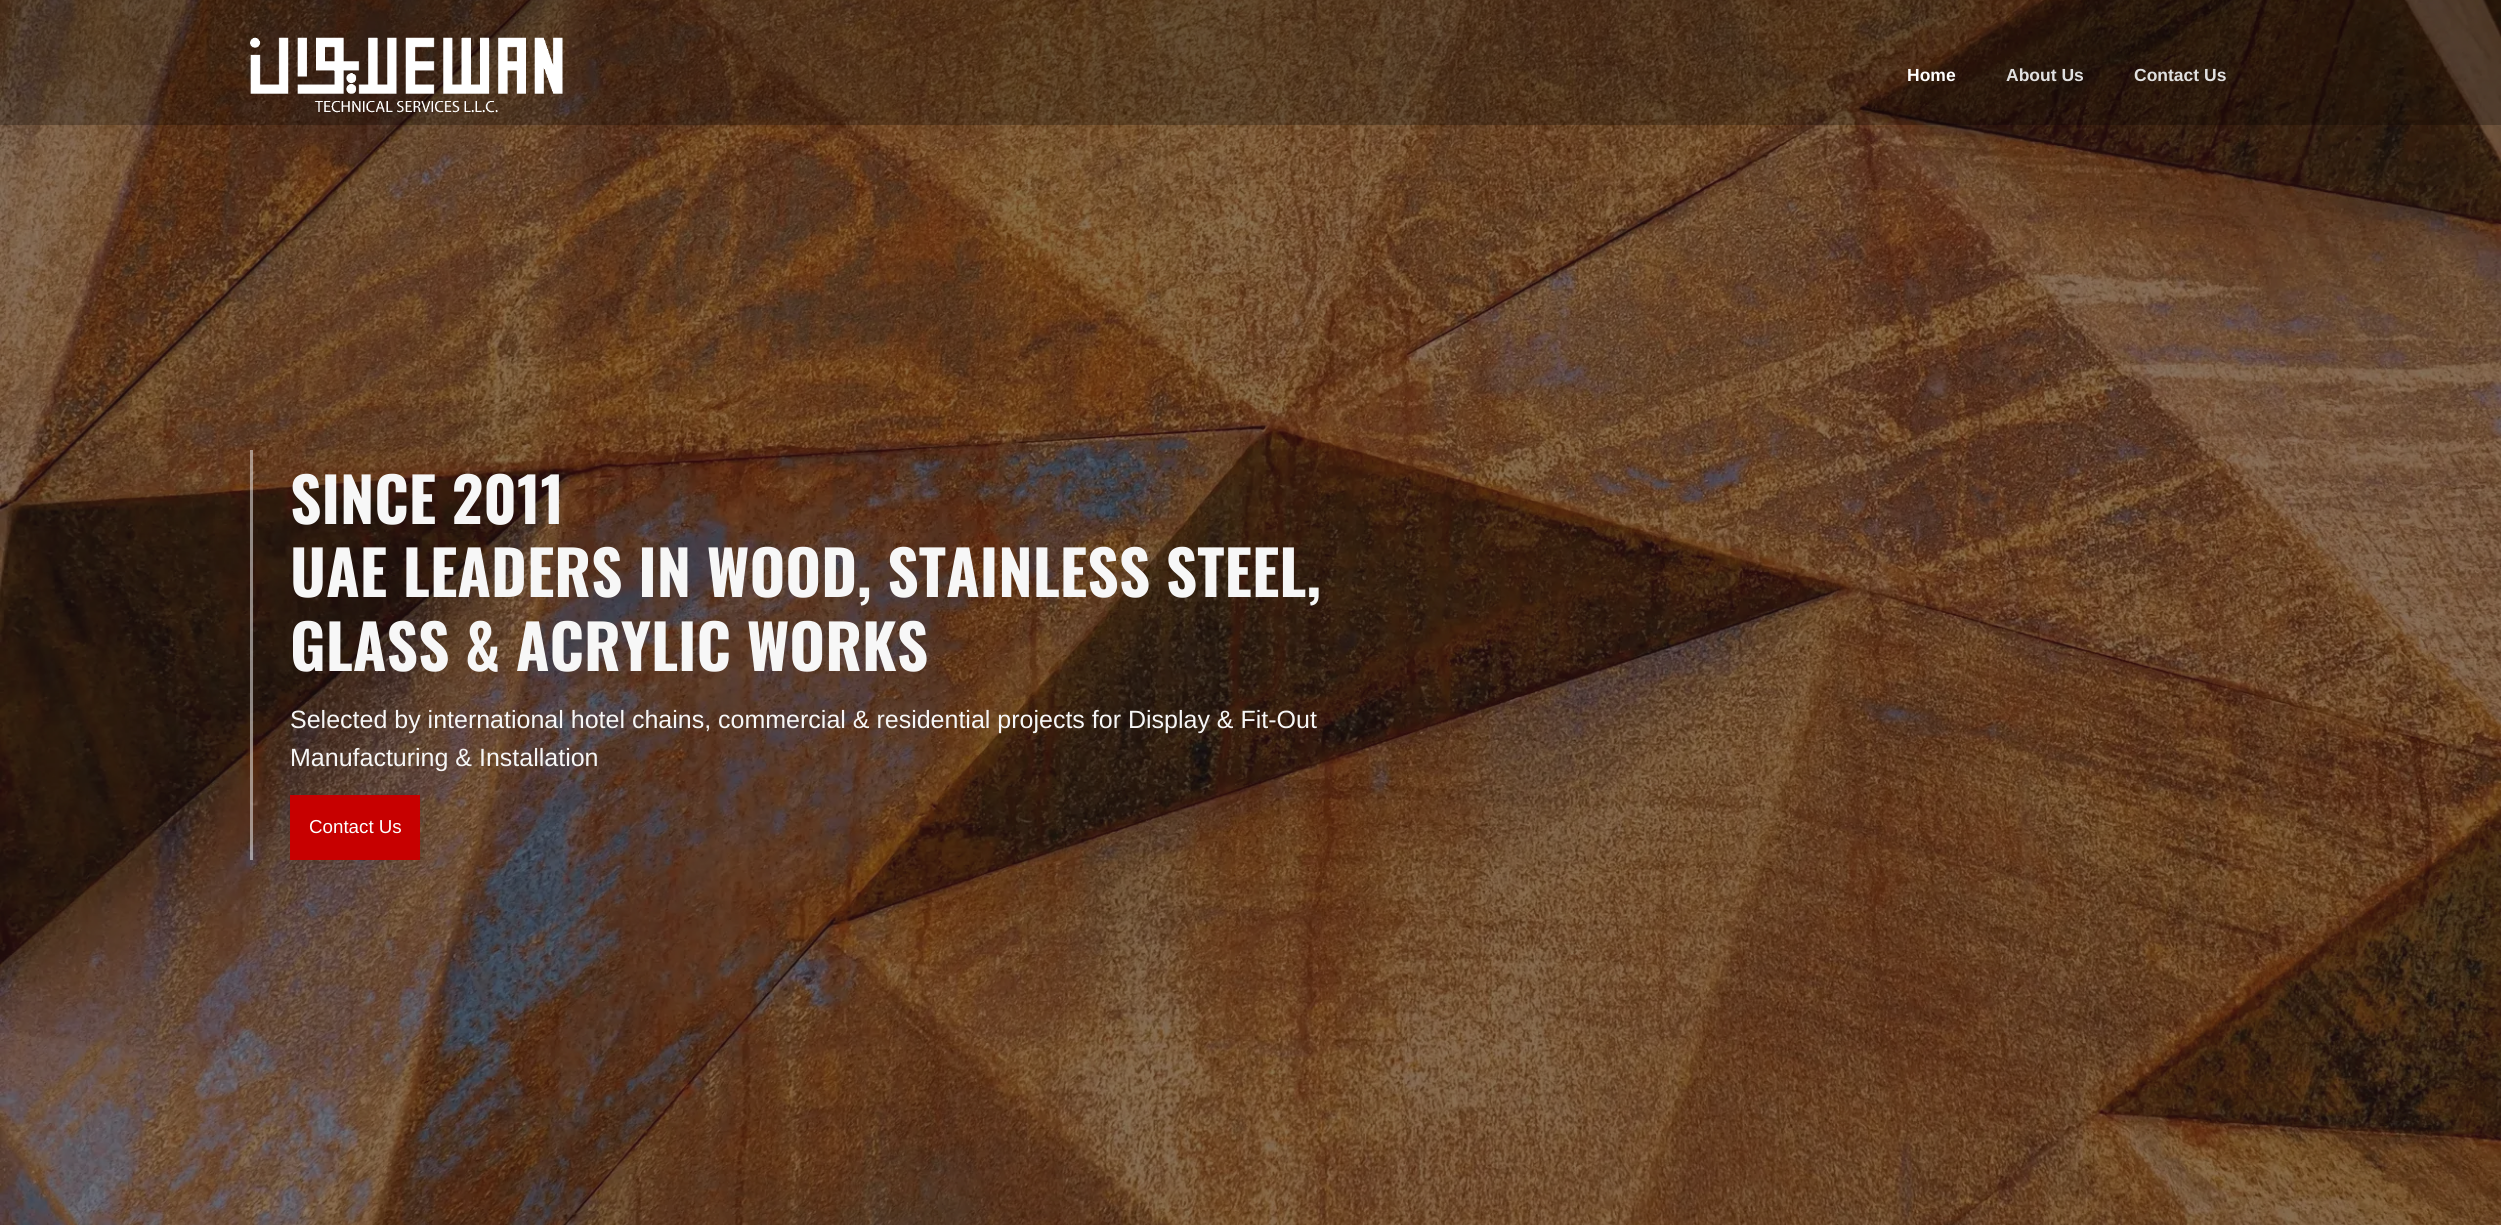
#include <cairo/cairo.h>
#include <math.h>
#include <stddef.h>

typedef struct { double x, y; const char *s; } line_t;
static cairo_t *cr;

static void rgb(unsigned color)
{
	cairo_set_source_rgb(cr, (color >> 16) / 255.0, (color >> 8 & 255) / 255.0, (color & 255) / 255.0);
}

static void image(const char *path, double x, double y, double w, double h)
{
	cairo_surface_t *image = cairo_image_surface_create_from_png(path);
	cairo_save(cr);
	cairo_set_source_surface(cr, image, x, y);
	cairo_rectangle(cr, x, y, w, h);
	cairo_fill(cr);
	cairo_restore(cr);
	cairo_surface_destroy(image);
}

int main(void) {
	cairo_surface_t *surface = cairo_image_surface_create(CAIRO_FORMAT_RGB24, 2501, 1225);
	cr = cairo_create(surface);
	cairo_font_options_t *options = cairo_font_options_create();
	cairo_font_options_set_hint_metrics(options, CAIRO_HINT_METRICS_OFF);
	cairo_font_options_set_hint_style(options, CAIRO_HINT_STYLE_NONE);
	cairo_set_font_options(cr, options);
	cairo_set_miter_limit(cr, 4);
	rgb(0xffffff);
	cairo_paint(cr);
	image("img/1.png", 0, 0, 2501, 1225);
	cairo_set_source_rgba(cr, 0, 0, 0, 0.25);
	cairo_rectangle(cr, 0, 0, 2501, 125);
	cairo_fill(cr);
	image("img/2.png", 250, 37, 313, 76);
	cairo_set_source_rgba(cr, 0.969, 0.969, 0.969, 0.5);
	cairo_rectangle(cr, 250, 450, 3, 410);
	cairo_fill(cr);
	rgb(0xc70000);
	cairo_rectangle(cr, 290, 795, 130, 65);
	cairo_fill(cr);
	cairo_select_font_face(cr, "Liberation Sans", CAIRO_FONT_SLANT_NORMAL, CAIRO_FONT_WEIGHT_BOLD);
	cairo_set_font_size(cr, 17.5);
	rgb(0xffffff);
	cairo_move_to(cr, 1907, 81);
	cairo_show_text(cr, "Home");
	rgb(0xe1e1e1);
	cairo_move_to(cr, 2006, 81);
	cairo_show_text(cr, "About Us");
	cairo_move_to(cr, 2134, 81);
	cairo_show_text(cr, "Contact Us");
	cairo_select_font_face(cr, "Oswald", CAIRO_FONT_SLANT_NORMAL, CAIRO_FONT_WEIGHT_BOLD);
	cairo_set_font_size(cr, 61.25);
	rgb(0xf7f7f7);
	{
		static const line_t items[] = {
			{290, 524, "SINCE 2011"},
			{290, 597, "UAE LEADERS IN WOOD, STAINLESS STEEL,"},
			{290, 671, "GLASS & ACRYLIC WORKS"},
		};
		for (size_t i = 0; i < sizeof items / sizeof *items; i++) {
			cairo_move_to(cr, items[i].x, items[i].y);
			cairo_show_text(cr, items[i].s);
		}
	}
	cairo_select_font_face(cr, "Liberation Sans", CAIRO_FONT_SLANT_NORMAL, CAIRO_FONT_WEIGHT_NORMAL);
	cairo_set_font_size(cr, 25);
	cairo_move_to(cr, 290, 728);
	cairo_show_text(cr, "Selected by international hotel chains, commercial & residential projects for Display & Fit-Out");
	cairo_move_to(cr, 290, 766);
	cairo_show_text(cr, "Manufacturing & Installation");
	cairo_set_font_size(cr, 18.75);
	rgb(0xffffff);
	cairo_move_to(cr, 309, 833);
	cairo_show_text(cr, "Contact Us");
	cairo_surface_write_to_png(surface, "page.png");
	cairo_font_options_destroy(options);
	cairo_destroy(cr);
	cairo_surface_destroy(surface);
	return 0;
}
